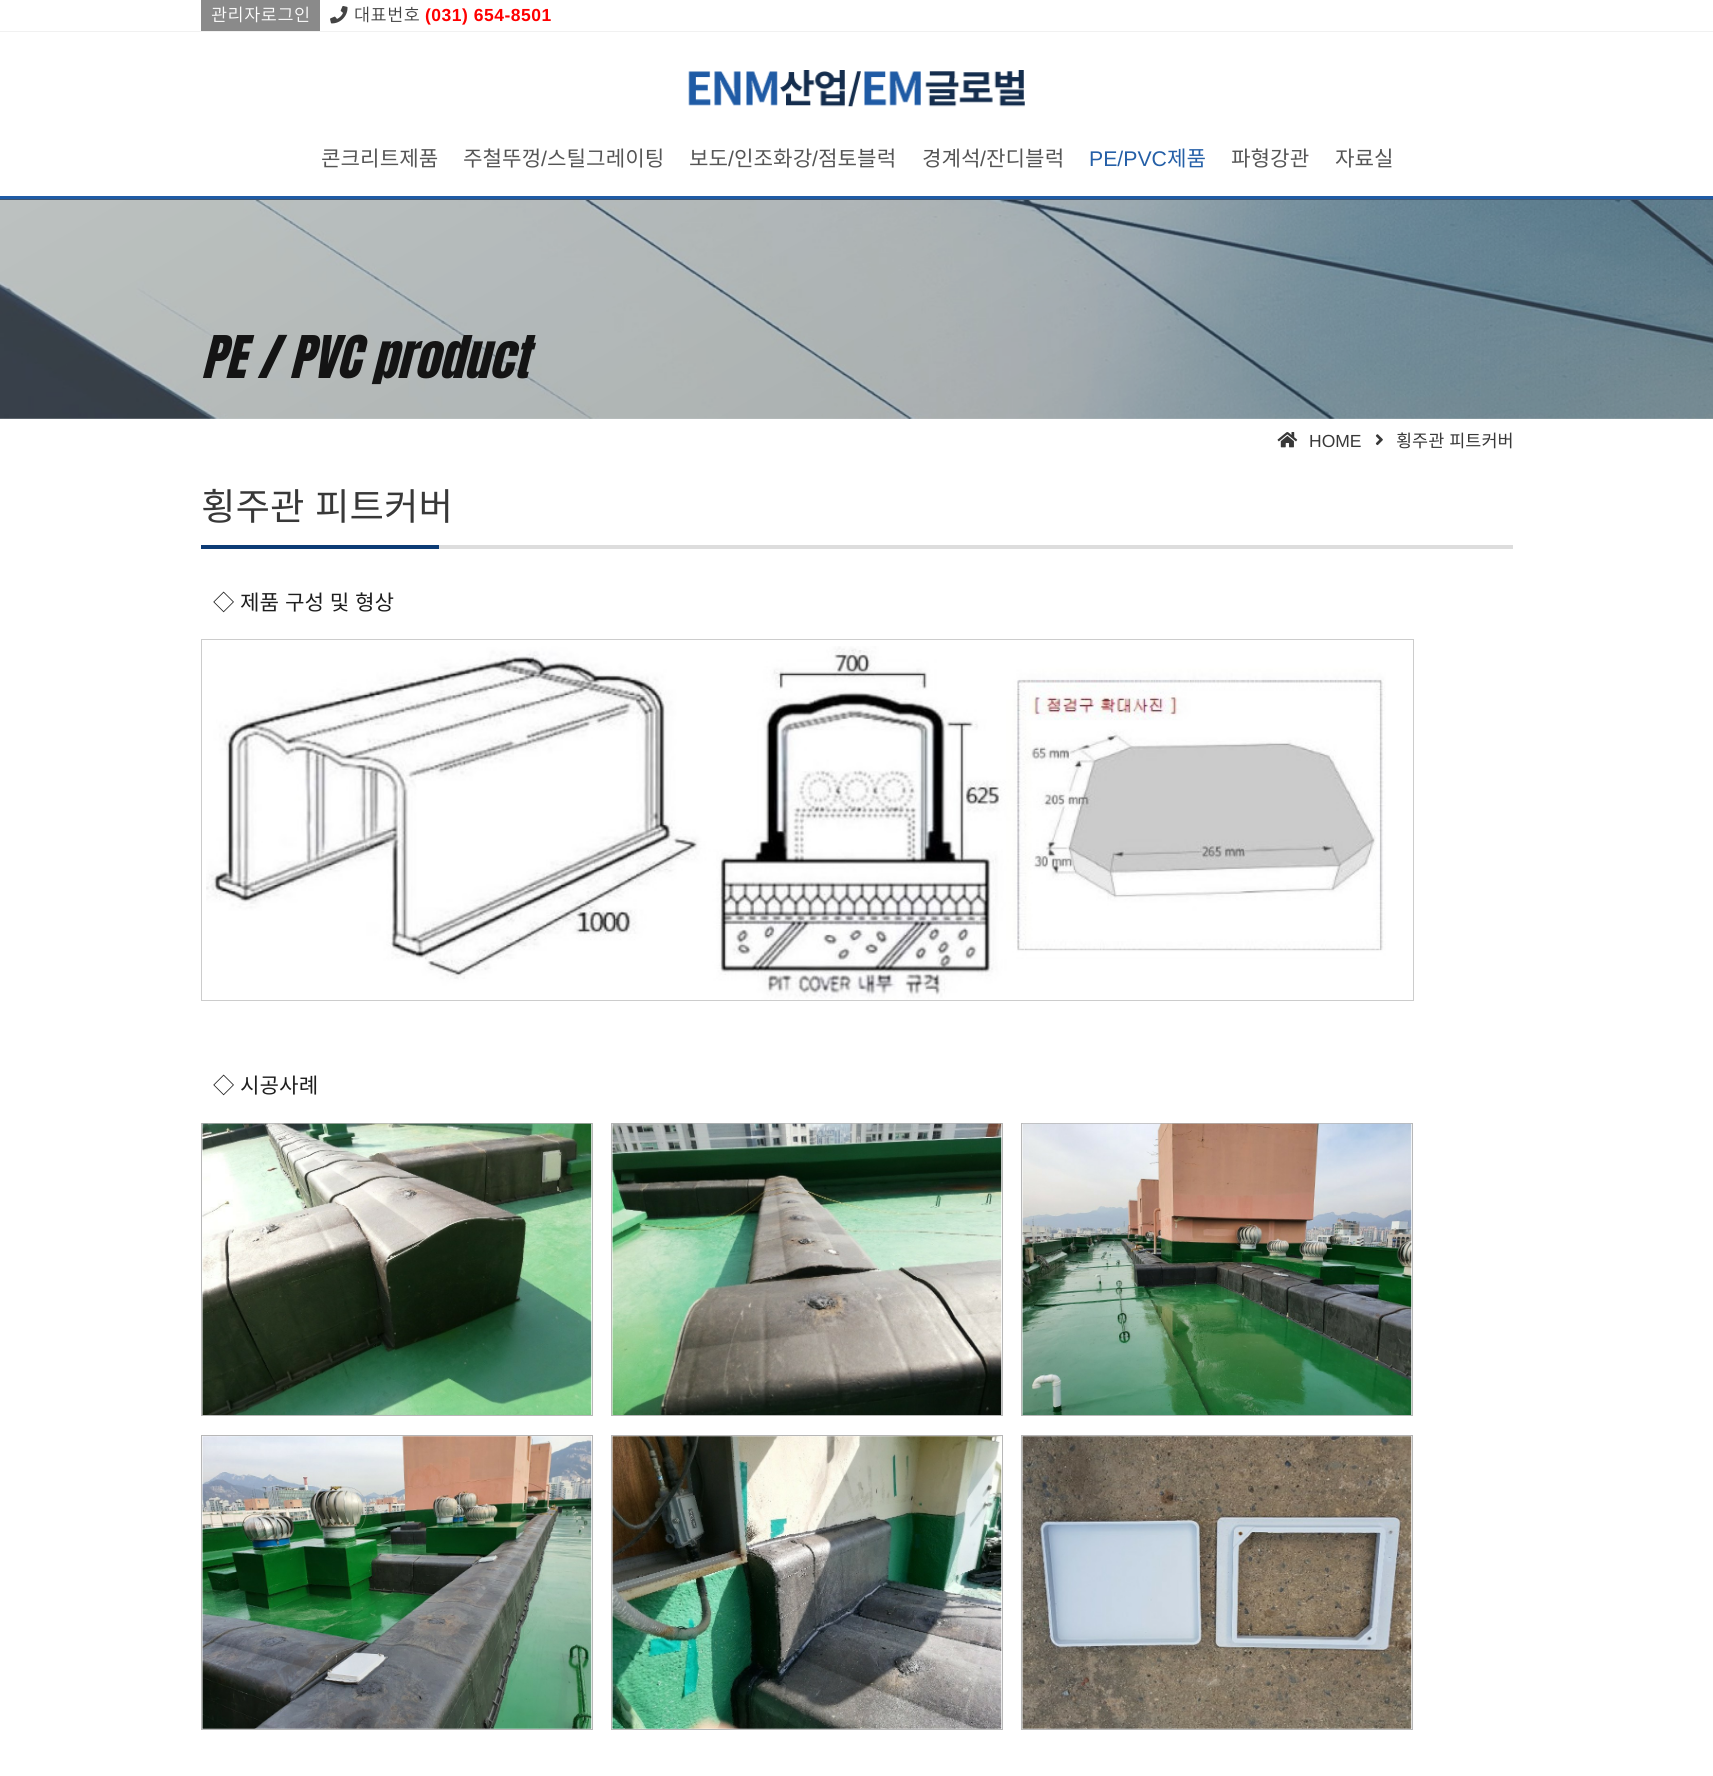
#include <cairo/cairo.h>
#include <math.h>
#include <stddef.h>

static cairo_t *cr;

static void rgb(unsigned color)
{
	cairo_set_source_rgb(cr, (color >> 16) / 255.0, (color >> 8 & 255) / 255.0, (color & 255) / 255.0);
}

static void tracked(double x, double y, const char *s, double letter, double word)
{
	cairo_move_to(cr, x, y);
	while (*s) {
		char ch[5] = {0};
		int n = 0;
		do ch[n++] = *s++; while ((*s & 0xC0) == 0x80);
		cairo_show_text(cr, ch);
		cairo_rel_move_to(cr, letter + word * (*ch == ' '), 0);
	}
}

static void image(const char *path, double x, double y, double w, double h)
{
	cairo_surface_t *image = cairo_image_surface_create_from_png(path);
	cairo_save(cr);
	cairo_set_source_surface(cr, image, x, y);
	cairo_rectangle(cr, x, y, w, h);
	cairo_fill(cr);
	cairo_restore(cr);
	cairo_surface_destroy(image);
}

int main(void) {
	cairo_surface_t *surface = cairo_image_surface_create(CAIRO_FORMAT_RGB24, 1713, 1776);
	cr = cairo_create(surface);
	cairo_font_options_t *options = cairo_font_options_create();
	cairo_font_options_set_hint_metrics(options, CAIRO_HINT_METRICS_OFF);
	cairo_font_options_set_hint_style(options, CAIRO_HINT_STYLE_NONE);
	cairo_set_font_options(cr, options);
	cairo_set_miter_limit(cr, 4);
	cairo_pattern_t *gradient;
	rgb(0xffffff);
	cairo_paint(cr);
	rgb(0xf1f1f1);
	cairo_rectangle(cr, 0, 31, 1713, 1);
	cairo_fill(cr);
	rgb(0x8a8a8a);
	cairo_rectangle(cr, 201, 0, 119, 31);
	cairo_fill(cr);
	image("img/1.png", 330, 6, 18, 18);
	rgb(0x3b5371);
	cairo_rectangle(cr, 0, 199, 1713, 1);
	cairo_fill(cr);
	image("img/2.png", 688, 70, 337, 37);
	rgb(0x1f5ba5);
	cairo_rectangle(cr, 0, 196, 1713, 3);
	cairo_fill(cr);
	image("img/3.png", 0, 200, 1713, 219);
	gradient = cairo_pattern_create_linear(595, -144, 1118, 762);
	cairo_pattern_add_color_stop_rgba(gradient, 0, 0, 0.137, 0.208, 0.16);
	cairo_pattern_add_color_stop_rgba(gradient, 1, 0, 0.067, 0.055, 0.27);
	cairo_set_source(cr, gradient);
	cairo_pattern_destroy(gradient);
	cairo_rectangle(cr, 0, 200, 1713, 219);
	cairo_fill(cr);
	image("img/4.png", 1277, 432, 21, 16);
	image("img/5.png", 1375, 434, 8, 12);
	rgb(0x0c3b75);
	cairo_rectangle(cr, 201, 545, 238, 4);
	cairo_fill(cr);
	rgb(0xdddddd);
	cairo_rectangle(cr, 439, 545, 1074, 4);
	cairo_fill(cr);
	cairo_rectangle(cr, 201.5, 639.5, 1212, 361);
	rgb(0xcccccc);
	cairo_set_line_width(cr, 1);
	cairo_stroke(cr);
	image("img/6.png", 206, 646, 1180, 354);
	cairo_rectangle(cr, 201.5, 1123.5, 391, 292);
	rgb(0xb7b7b7);
	cairo_stroke(cr);
	image("img/7.png", 202, 1123, 390, 292);
	cairo_rectangle(cr, 611.5, 1123.5, 391, 292);
	cairo_stroke(cr);
	image("img/8.png", 612, 1123, 390, 292);
	cairo_rectangle(cr, 1021.5, 1123.5, 391, 292);
	cairo_stroke(cr);
	image("img/9.png", 1022, 1123, 390, 292);
	cairo_rectangle(cr, 201.5, 1435.5, 391, 294);
	cairo_stroke(cr);
	image("img/10.png", 202, 1436, 390, 293);
	cairo_rectangle(cr, 611.5, 1435.5, 391, 294);
	cairo_stroke(cr);
	image("img/11.png", 612, 1436, 390, 293);
	cairo_rectangle(cr, 1021.5, 1435.5, 391, 294);
	cairo_stroke(cr);
	image("img/12.png", 1022, 1436, 390, 293);
	cairo_select_font_face(cr, "Noto Sans KR Light", CAIRO_FONT_SLANT_NORMAL, CAIRO_FONT_WEIGHT_NORMAL);
	cairo_set_font_size(cr, 17.5);
	rgb(0xffffff);
	tracked(211, 21, "관리자로그인", 0.5, 0);
	rgb(0x444444);
	tracked(354, 21, "대표번호", 0.5, 0);
	cairo_select_font_face(cr, "Liberation Sans", CAIRO_FONT_SLANT_NORMAL, CAIRO_FONT_WEIGHT_BOLD);
	rgb(0xff0000);
	tracked(425, 21, "(031) 654-8501", 0.5, 0);
	cairo_select_font_face(cr, "Noto Sans KR", CAIRO_FONT_SLANT_NORMAL, CAIRO_FONT_WEIGHT_NORMAL);
	cairo_set_font_size(cr, 21.25);
	rgb(0x555555);
	cairo_move_to(cr, 321, 166);
	cairo_show_text(cr, "콘크리트제품");
	cairo_move_to(cr, 463, 166);
	cairo_show_text(cr, "주철뚜껑");
	cairo_select_font_face(cr, "Liberation Sans", CAIRO_FONT_SLANT_NORMAL, CAIRO_FONT_WEIGHT_NORMAL);
	cairo_move_to(cr, 541, 166);
	cairo_show_text(cr, "/");
	cairo_select_font_face(cr, "Noto Sans KR", CAIRO_FONT_SLANT_NORMAL, CAIRO_FONT_WEIGHT_NORMAL);
	cairo_move_to(cr, 547, 166);
	cairo_show_text(cr, "스틸그레이팅");
	cairo_move_to(cr, 689, 166);
	cairo_show_text(cr, "보도");
	cairo_select_font_face(cr, "Liberation Sans", CAIRO_FONT_SLANT_NORMAL, CAIRO_FONT_WEIGHT_NORMAL);
	cairo_move_to(cr, 728, 166);
	cairo_show_text(cr, "/");
	cairo_select_font_face(cr, "Noto Sans KR", CAIRO_FONT_SLANT_NORMAL, CAIRO_FONT_WEIGHT_NORMAL);
	cairo_move_to(cr, 734, 166);
	cairo_show_text(cr, "인조화강");
	cairo_select_font_face(cr, "Liberation Sans", CAIRO_FONT_SLANT_NORMAL, CAIRO_FONT_WEIGHT_NORMAL);
	cairo_move_to(cr, 812, 166);
	cairo_show_text(cr, "/");
	cairo_select_font_face(cr, "Noto Sans KR", CAIRO_FONT_SLANT_NORMAL, CAIRO_FONT_WEIGHT_NORMAL);
	cairo_move_to(cr, 818, 166);
	cairo_show_text(cr, "점토블럭");
	cairo_move_to(cr, 922, 166);
	cairo_show_text(cr, "경계석");
	cairo_select_font_face(cr, "Liberation Sans", CAIRO_FONT_SLANT_NORMAL, CAIRO_FONT_WEIGHT_NORMAL);
	cairo_move_to(cr, 980, 166);
	cairo_show_text(cr, "/");
	cairo_select_font_face(cr, "Noto Sans KR", CAIRO_FONT_SLANT_NORMAL, CAIRO_FONT_WEIGHT_NORMAL);
	cairo_move_to(cr, 986, 166);
	cairo_show_text(cr, "잔디블럭");
	cairo_select_font_face(cr, "Liberation Sans", CAIRO_FONT_SLANT_NORMAL, CAIRO_FONT_WEIGHT_NORMAL);
	rgb(0x245fa7);
	cairo_move_to(cr, 1089, 166);
	cairo_show_text(cr, "PE/PVC");
	cairo_select_font_face(cr, "Noto Sans KR", CAIRO_FONT_SLANT_NORMAL, CAIRO_FONT_WEIGHT_NORMAL);
	cairo_move_to(cr, 1167, 166);
	cairo_show_text(cr, "제품");
	rgb(0x555555);
	cairo_move_to(cr, 1231, 166);
	cairo_show_text(cr, "파형강관");
	cairo_move_to(cr, 1335, 166);
	cairo_show_text(cr, "자료실");
	cairo_select_font_face(cr, "Anton", CAIRO_FONT_SLANT_ITALIC, CAIRO_FONT_WEIGHT_NORMAL);
	cairo_set_font_size(cr, 50);
	rgb(0x141414);
	cairo_move_to(cr, 201, 378);
	cairo_show_text(cr, "PE / PVC product");
	cairo_select_font_face(cr, "Liberation Sans", CAIRO_FONT_SLANT_NORMAL, CAIRO_FONT_WEIGHT_NORMAL);
	cairo_set_font_size(cr, 17.5);
	rgb(0x383838);
	cairo_move_to(cr, 1309, 447);
	cairo_show_text(cr, "HOME");
	cairo_select_font_face(cr, "Noto Sans KR", CAIRO_FONT_SLANT_NORMAL, CAIRO_FONT_WEIGHT_NORMAL);
	tracked(1396, 447, "횡주관 피트커버", 0, 1);
	cairo_set_font_size(cr, 37.5);
	tracked(201, 520, "횡주관 피트커버", 0, 2);
	cairo_set_font_size(cr, 21.25);
	rgb(0x1e1e1e);
	tracked(213, 610, "◇ 제품 구성 및 형상", 0, 1);
	tracked(213, 1093, "◇ 시공사례", 0, 1);
	cairo_surface_write_to_png(surface, "page.png");
	cairo_font_options_destroy(options);
	cairo_destroy(cr);
	cairo_surface_destroy(surface);
	return 0;
}
